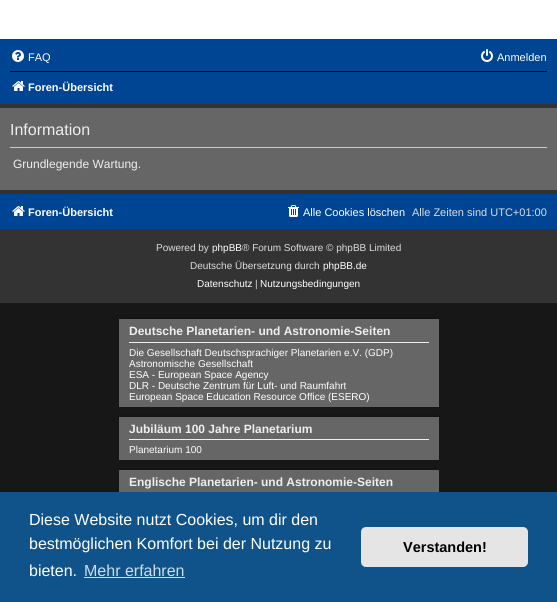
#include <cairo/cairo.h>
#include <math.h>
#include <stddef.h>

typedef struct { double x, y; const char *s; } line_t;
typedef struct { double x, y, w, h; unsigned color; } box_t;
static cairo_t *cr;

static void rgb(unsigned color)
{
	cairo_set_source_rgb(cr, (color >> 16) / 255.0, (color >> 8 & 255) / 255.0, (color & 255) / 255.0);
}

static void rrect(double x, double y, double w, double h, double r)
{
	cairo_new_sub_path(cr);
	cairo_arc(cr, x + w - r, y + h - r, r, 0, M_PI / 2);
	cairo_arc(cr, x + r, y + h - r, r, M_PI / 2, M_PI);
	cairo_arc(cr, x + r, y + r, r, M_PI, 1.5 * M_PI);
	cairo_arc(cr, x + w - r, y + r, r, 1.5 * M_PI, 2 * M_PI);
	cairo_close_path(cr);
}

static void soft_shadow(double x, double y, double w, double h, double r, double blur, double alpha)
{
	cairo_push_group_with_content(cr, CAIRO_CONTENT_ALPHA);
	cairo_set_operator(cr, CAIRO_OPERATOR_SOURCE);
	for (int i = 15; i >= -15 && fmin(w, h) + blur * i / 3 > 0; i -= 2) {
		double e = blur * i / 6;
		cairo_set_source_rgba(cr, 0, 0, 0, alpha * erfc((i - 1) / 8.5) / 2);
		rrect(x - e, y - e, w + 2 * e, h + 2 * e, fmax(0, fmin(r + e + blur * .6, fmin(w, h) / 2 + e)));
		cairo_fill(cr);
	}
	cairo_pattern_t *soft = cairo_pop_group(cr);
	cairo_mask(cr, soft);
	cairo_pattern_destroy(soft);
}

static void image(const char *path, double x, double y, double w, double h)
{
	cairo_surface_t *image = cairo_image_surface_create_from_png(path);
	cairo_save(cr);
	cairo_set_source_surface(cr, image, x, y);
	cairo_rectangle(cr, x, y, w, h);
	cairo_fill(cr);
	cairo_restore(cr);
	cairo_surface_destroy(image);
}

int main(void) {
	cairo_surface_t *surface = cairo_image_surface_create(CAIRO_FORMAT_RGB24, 557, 602);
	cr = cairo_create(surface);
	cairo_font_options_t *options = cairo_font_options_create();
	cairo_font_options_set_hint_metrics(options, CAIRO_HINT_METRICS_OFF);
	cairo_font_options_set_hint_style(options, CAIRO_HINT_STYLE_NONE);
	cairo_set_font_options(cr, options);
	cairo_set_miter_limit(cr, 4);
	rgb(0x171717);
	cairo_paint(cr);
	{
		static const box_t items[] = {
			{0, 104, 557, 199, 0x333333},
			{0, 0, 557, 39, 0xffffff},
			{0, 39, 557, 65, 0x004494},
		};
		for (size_t i = 0; i < sizeof items / sizeof *items; i++) {
			rgb(items[i].color);
			cairo_rectangle(cr, items[i].x, items[i].y, items[i].w, items[i].h);
			cairo_fill(cr);
		}
	}
	image("img/1.png", 12, 50, 12, 12);
	image("img/2.png", 481, 49, 12, 13);
	rgb(0x000000);
	cairo_rectangle(cr, 10, 71, 537, 1);
	cairo_fill(cr);
	image("img/3.png", 12, 81, 13, 10);
	{
		static const box_t items[] = {
			{0, 108, 557, 82, 0x666666},
			{10, 147, 537, 1, 0xcccccc},
			{0, 194, 557, 35, 0x004494},
		};
		for (size_t i = 0; i < sizeof items / sizeof *items; i++) {
			rgb(items[i].color);
			cairo_rectangle(cr, items[i].x, items[i].y, items[i].w, items[i].h);
			cairo_fill(cr);
		}
	}
	image("img/3.png", 12, 206, 13, 10);
	image("img/4.png", 288, 205, 11, 12);
	rgb(0x020202);
	soft_shadow(121, 320, 316, 84, 0, 2, 0.7);
	rgb(0x666666);
	cairo_rectangle(cr, 119, 319, 320, 88);
	cairo_fill(cr);
	rgb(0xeeeeee);
	cairo_rectangle(cr, 129, 342, 300, 1);
	cairo_fill(cr);
	rgb(0x020202);
	soft_shadow(121, 418, 316, 39, 0, 2, 0.7);
	rgb(0x666666);
	cairo_rectangle(cr, 119, 417, 320, 43);
	cairo_fill(cr);
	rgb(0xeeeeee);
	cairo_rectangle(cr, 129, 439, 300, 1);
	cairo_fill(cr);
	rgb(0x020202);
	soft_shadow(121, 471, 316, 61, 0, 2, 0.7);
	{
		static const box_t items[] = {
			{119, 470, 320, 22, 0x666666},
			{0, 492, 557, 110, 0x0f538a},
			{84, 577, 101, 1, 0xcfdde8},
		};
		for (size_t i = 0; i < sizeof items / sizeof *items; i++) {
			rgb(items[i].color);
			cairo_rectangle(cr, items[i].x, items[i].y, items[i].w, items[i].h);
			cairo_fill(cr);
		}
	}
	rgb(0xe5e5e5);
	rrect(361, 527, 167, 40, 5);
	cairo_fill(cr);
	cairo_select_font_face(cr, "Liberation Sans", CAIRO_FONT_SLANT_NORMAL, CAIRO_FONT_WEIGHT_NORMAL);
	cairo_set_font_size(cr, 11);
	rgb(0xffffff);
	cairo_move_to(cr, 28, 61);
	cairo_show_text(cr, "FAQ");
	cairo_move_to(cr, 497, 61);
	cairo_show_text(cr, "Anmelden");
	cairo_select_font_face(cr, "Liberation Sans", CAIRO_FONT_SLANT_NORMAL, CAIRO_FONT_WEIGHT_BOLD);
	cairo_move_to(cr, 28, 91);
	cairo_show_text(cr, "Foren-Übersicht");
	cairo_select_font_face(cr, "Liberation Sans", CAIRO_FONT_SLANT_NORMAL, CAIRO_FONT_WEIGHT_NORMAL);
	cairo_set_font_size(cr, 16);
	rgb(0xeeeeee);
	cairo_move_to(cr, 10, 135);
	cairo_show_text(cr, "Information");
	cairo_set_font_size(cr, 12);
	cairo_move_to(cr, 13, 168);
	cairo_show_text(cr, "Grundlegende Wartung.");
	cairo_select_font_face(cr, "Liberation Sans", CAIRO_FONT_SLANT_NORMAL, CAIRO_FONT_WEIGHT_BOLD);
	cairo_set_font_size(cr, 11);
	rgb(0xffffff);
	cairo_move_to(cr, 28, 216);
	cairo_show_text(cr, "Foren-Übersicht");
	cairo_select_font_face(cr, "Liberation Sans", CAIRO_FONT_SLANT_NORMAL, CAIRO_FONT_WEIGHT_NORMAL);
	cairo_move_to(cr, 303, 216);
	cairo_show_text(cr, "Alle Cookies löschen");
	rgb(0xdddddd);
	cairo_move_to(cr, 412, 216);
	cairo_show_text(cr, "Alle Zeiten sind UTC+01:00");
	cairo_set_font_size(cr, 10);
	cairo_move_to(cr, 156, 251);
	cairo_show_text(cr, "Powered by");
	rgb(0xffffff);
	cairo_move_to(cr, 212, 251);
	cairo_show_text(cr, "phpBB");
	rgb(0xdddddd);
	cairo_move_to(cr, 242, 251);
	cairo_show_text(cr, "® Forum Software © phpBB Limited");
	cairo_move_to(cr, 190, 269);
	cairo_show_text(cr, "Deutsche Übersetzung durch");
	rgb(0xffffff);
	cairo_move_to(cr, 323, 269);
	cairo_show_text(cr, "phpBB.de");
	cairo_move_to(cr, 197, 287);
	cairo_show_text(cr, "Datenschutz");
	rgb(0xdddddd);
	cairo_move_to(cr, 255, 287);
	cairo_show_text(cr, "|");
	rgb(0xffffff);
	cairo_move_to(cr, 260, 287);
	cairo_show_text(cr, "Nutzungsbedingungen");
	cairo_select_font_face(cr, "Liberation Sans", CAIRO_FONT_SLANT_NORMAL, CAIRO_FONT_WEIGHT_BOLD);
	cairo_set_font_size(cr, 12);
	rgb(0xeeeeee);
	cairo_move_to(cr, 129, 335);
	cairo_show_text(cr, "Deutsche Planetarien- und Astronomie-Seiten");
	cairo_select_font_face(cr, "Liberation Sans", CAIRO_FONT_SLANT_NORMAL, CAIRO_FONT_WEIGHT_NORMAL);
	cairo_set_font_size(cr, 10);
	rgb(0xffffff);
	{
		static const line_t items[] = {
			{129, 356, "Die Gesellschaft Deutschsprachiger Planetarien e.V. (GDP)"},
			{129, 367, "Astronomische Gesellschaft"},
			{129, 378, "ESA - European Space Agency"},
			{129, 389, "DLR - Deutsche Zentrum für Luft- und Raumfahrt"},
			{129, 400, "European Space Education Resource Office (ESERO)"},
		};
		for (size_t i = 0; i < sizeof items / sizeof *items; i++) {
			cairo_move_to(cr, items[i].x, items[i].y);
			cairo_show_text(cr, items[i].s);
		}
	}
	cairo_select_font_face(cr, "Liberation Sans", CAIRO_FONT_SLANT_NORMAL, CAIRO_FONT_WEIGHT_BOLD);
	cairo_set_font_size(cr, 12);
	rgb(0xeeeeee);
	cairo_move_to(cr, 129, 433);
	cairo_show_text(cr, "Jubiläum 100 Jahre Planetarium");
	cairo_select_font_face(cr, "Liberation Sans", CAIRO_FONT_SLANT_NORMAL, CAIRO_FONT_WEIGHT_NORMAL);
	cairo_set_font_size(cr, 10);
	rgb(0xffffff);
	cairo_move_to(cr, 129, 453);
	cairo_show_text(cr, "Planetarium 100");
	cairo_select_font_face(cr, "Liberation Sans", CAIRO_FONT_SLANT_NORMAL, CAIRO_FONT_WEIGHT_BOLD);
	cairo_set_font_size(cr, 12);
	rgb(0xeeeeee);
	cairo_move_to(cr, 129, 486);
	cairo_show_text(cr, "Englische Planetarien- und Astronomie-Seiten");
	cairo_select_font_face(cr, "Liberation Sans", CAIRO_FONT_SLANT_NORMAL, CAIRO_FONT_WEIGHT_NORMAL);
	cairo_set_font_size(cr, 16);
	rgb(0xffffff);
	{
		static const line_t items[] = {
			{29, 525, "Diese Website nutzt Cookies, um dir den"},
			{29, 549, "bestmöglichen Komfort bei der Nutzung zu"},
			{29, 576, "bieten."},
		};
		for (size_t i = 0; i < sizeof items / sizeof *items; i++) {
			cairo_move_to(cr, items[i].x, items[i].y);
			cairo_show_text(cr, items[i].s);
		}
	}
	rgb(0xcfdde8);
	cairo_move_to(cr, 84, 576);
	cairo_show_text(cr, "Mehr erfahren");
	cairo_select_font_face(cr, "Liberation Sans", CAIRO_FONT_SLANT_NORMAL, CAIRO_FONT_WEIGHT_BOLD);
	cairo_set_font_size(cr, 14.5);
	rgb(0x000000);
	cairo_move_to(cr, 403, 552);
	cairo_show_text(cr, "Verstanden!");
	cairo_surface_write_to_png(surface, "page.png");
	cairo_font_options_destroy(options);
	cairo_destroy(cr);
	cairo_surface_destroy(surface);
	return 0;
}
